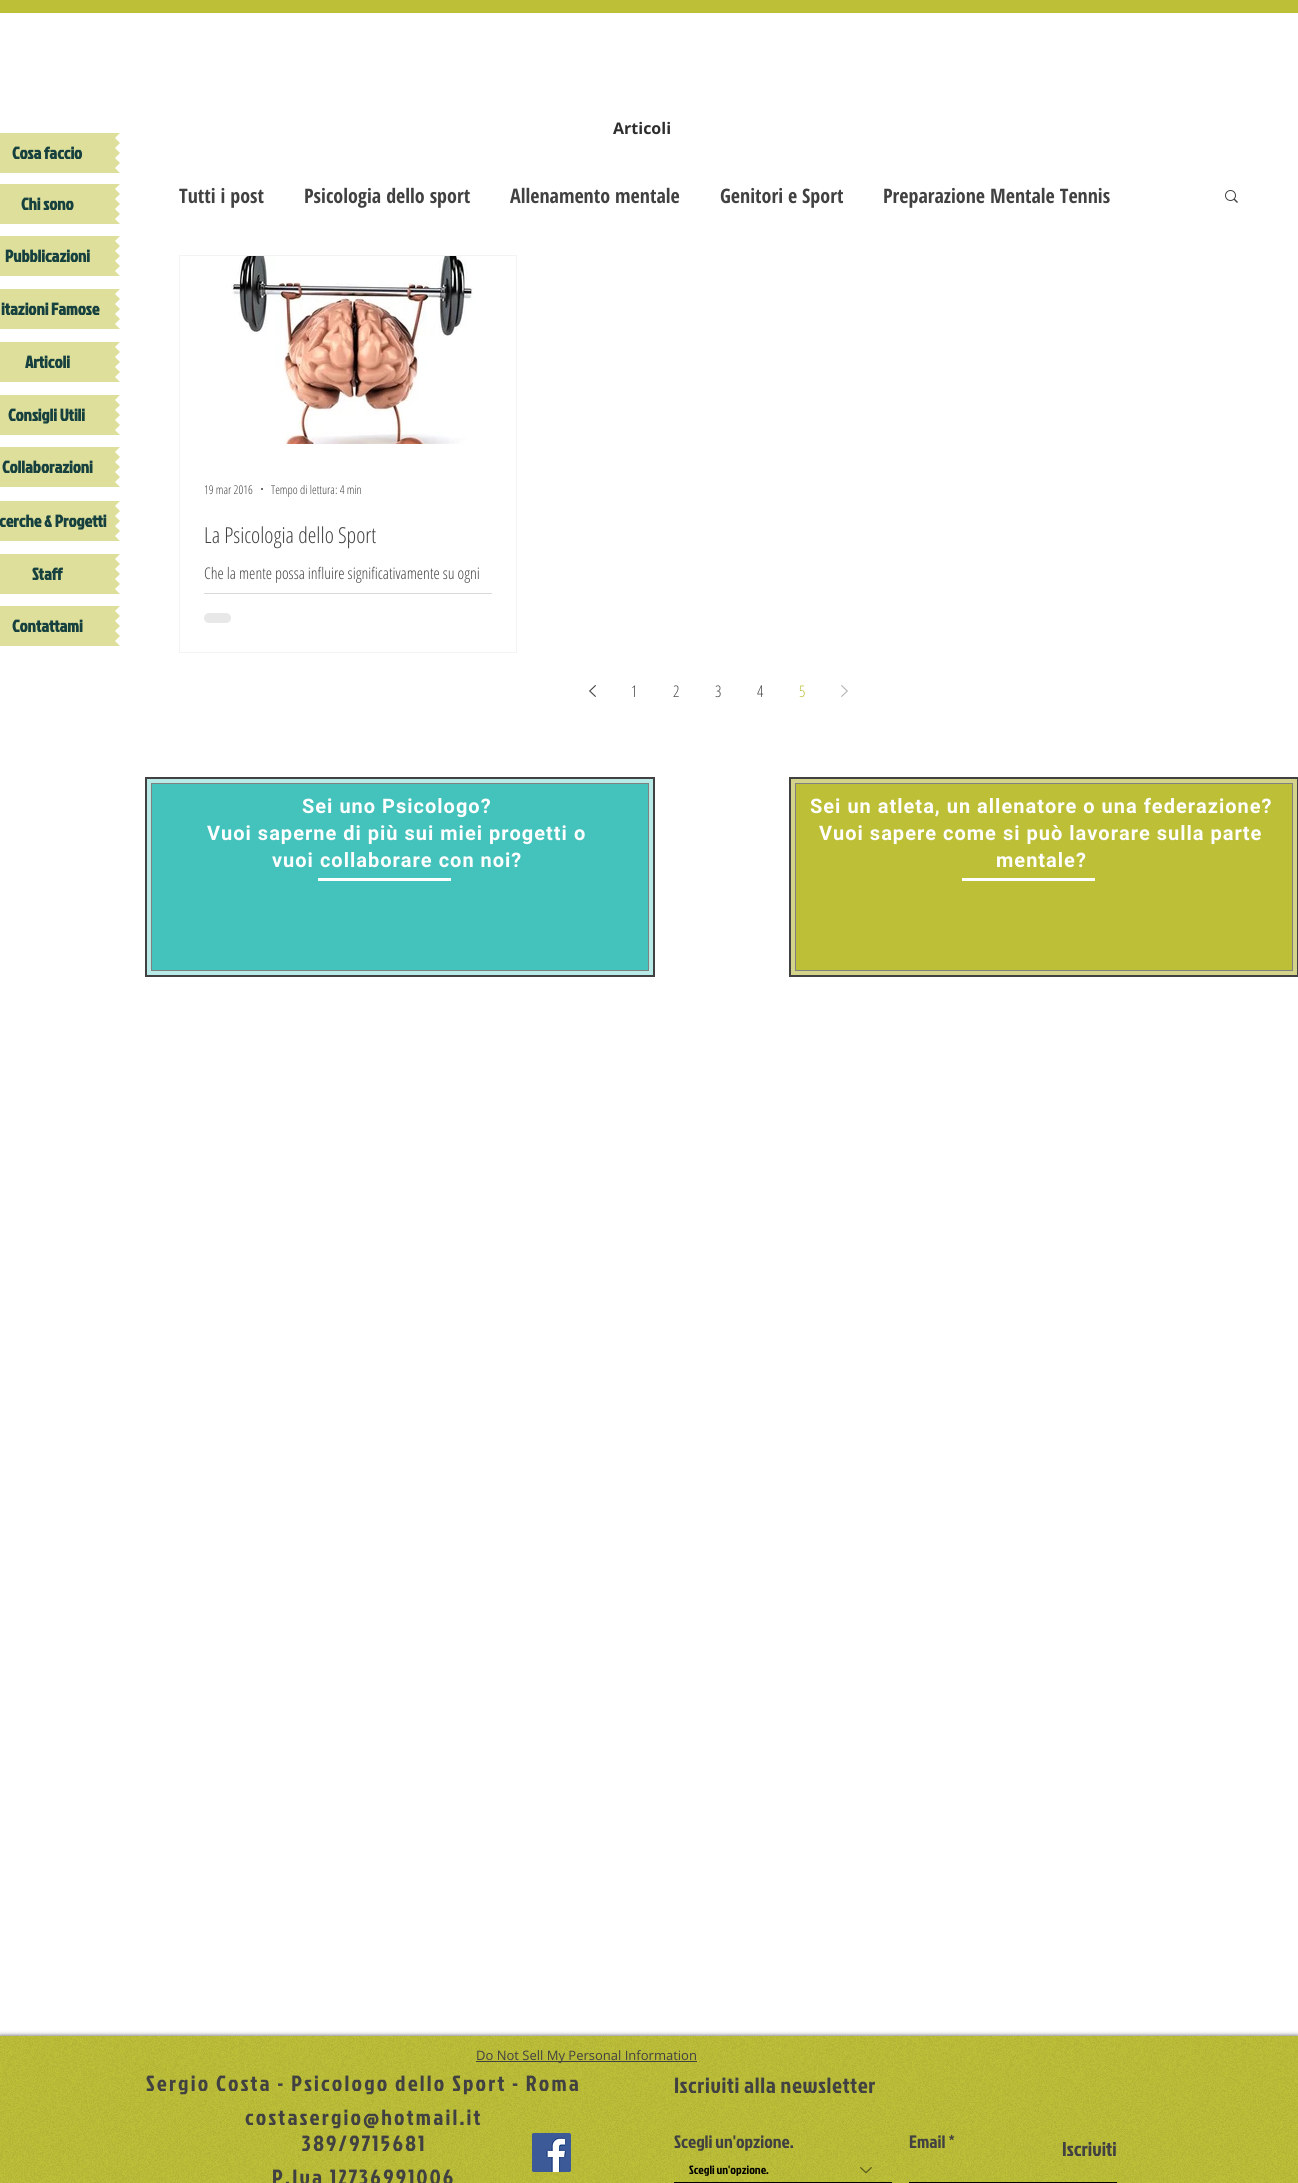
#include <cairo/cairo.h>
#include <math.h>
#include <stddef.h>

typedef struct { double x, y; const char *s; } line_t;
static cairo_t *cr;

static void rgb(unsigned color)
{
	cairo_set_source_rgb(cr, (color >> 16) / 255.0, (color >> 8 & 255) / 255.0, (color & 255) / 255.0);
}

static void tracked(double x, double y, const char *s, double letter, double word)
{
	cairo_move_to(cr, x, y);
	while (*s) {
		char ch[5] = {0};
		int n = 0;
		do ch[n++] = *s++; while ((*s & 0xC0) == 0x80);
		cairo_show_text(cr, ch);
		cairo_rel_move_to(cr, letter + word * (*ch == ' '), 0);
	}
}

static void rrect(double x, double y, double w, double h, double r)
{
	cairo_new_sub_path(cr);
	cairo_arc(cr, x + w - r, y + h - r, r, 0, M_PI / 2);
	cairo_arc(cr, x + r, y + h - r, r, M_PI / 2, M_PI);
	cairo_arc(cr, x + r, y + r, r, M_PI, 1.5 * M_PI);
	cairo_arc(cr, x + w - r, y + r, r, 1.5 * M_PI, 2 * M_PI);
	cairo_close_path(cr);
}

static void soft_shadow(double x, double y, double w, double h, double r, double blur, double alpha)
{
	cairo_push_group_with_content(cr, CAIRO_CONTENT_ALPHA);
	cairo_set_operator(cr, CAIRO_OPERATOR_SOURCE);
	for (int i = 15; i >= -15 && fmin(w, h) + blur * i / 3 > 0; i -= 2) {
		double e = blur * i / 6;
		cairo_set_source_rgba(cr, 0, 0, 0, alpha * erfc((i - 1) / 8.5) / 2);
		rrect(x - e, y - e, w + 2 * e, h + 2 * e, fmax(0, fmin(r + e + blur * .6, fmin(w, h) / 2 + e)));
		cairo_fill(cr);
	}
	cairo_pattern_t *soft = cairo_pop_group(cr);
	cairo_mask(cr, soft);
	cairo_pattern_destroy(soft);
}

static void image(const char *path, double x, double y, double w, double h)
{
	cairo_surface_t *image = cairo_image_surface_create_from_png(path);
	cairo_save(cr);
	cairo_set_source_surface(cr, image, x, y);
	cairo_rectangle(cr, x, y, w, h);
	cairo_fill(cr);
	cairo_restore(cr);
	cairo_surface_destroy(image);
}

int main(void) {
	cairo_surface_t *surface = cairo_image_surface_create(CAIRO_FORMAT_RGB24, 1298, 2183);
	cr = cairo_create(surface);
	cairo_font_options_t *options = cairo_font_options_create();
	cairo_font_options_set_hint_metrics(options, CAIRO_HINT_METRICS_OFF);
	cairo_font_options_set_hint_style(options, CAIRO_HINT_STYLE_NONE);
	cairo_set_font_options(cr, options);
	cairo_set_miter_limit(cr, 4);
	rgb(0xffffff);
	cairo_paint(cr);
	rgb(0xbdbf37);
	cairo_rectangle(cr, 0, 0, 1298, 13);
	cairo_fill(cr);
	rgb(0xdedf9b);
	cairo_rectangle(cr, 0, 133, 115, 40);
	cairo_fill(cr);
	cairo_save(cr);
	cairo_rectangle(cr, 115, 133, 5, 40);
	cairo_clip(cr);
	cairo_new_path(cr);
	cairo_move_to(cr, 115, 138);
	cairo_line_to(cr, 115, 128);
	cairo_line_to(cr, 120, 133);
	cairo_close_path(cr);
	cairo_fill(cr);
	cairo_restore(cr);
	cairo_new_path(cr);
	cairo_move_to(cr, 115, 148);
	cairo_line_to(cr, 115, 138);
	cairo_line_to(cr, 120, 143);
	cairo_close_path(cr);
	cairo_move_to(cr, 115, 158);
	cairo_line_to(cr, 115, 148);
	cairo_line_to(cr, 120, 153);
	cairo_close_path(cr);
	cairo_move_to(cr, 115, 168);
	cairo_line_to(cr, 115, 158);
	cairo_line_to(cr, 120, 163);
	cairo_close_path(cr);
	cairo_fill(cr);
	cairo_save(cr);
	cairo_rectangle(cr, 115, 133, 5, 40);
	cairo_clip(cr);
	cairo_new_path(cr);
	cairo_move_to(cr, 115, 178);
	cairo_line_to(cr, 115, 168);
	cairo_line_to(cr, 120, 173);
	cairo_close_path(cr);
	cairo_fill(cr);
	cairo_restore(cr);
	cairo_rectangle(cr, 0, 184, 115, 40);
	cairo_fill(cr);
	cairo_save(cr);
	cairo_rectangle(cr, 115, 184, 5, 40);
	cairo_clip(cr);
	cairo_new_path(cr);
	cairo_move_to(cr, 115, 189);
	cairo_line_to(cr, 115, 179);
	cairo_line_to(cr, 120, 184);
	cairo_close_path(cr);
	cairo_fill(cr);
	cairo_restore(cr);
	cairo_new_path(cr);
	cairo_move_to(cr, 115, 199);
	cairo_line_to(cr, 115, 189);
	cairo_line_to(cr, 120, 194);
	cairo_close_path(cr);
	cairo_move_to(cr, 115, 209);
	cairo_line_to(cr, 115, 199);
	cairo_line_to(cr, 120, 204);
	cairo_close_path(cr);
	cairo_move_to(cr, 115, 219);
	cairo_line_to(cr, 115, 209);
	cairo_line_to(cr, 120, 214);
	cairo_close_path(cr);
	cairo_fill(cr);
	cairo_save(cr);
	cairo_rectangle(cr, 115, 184, 5, 40);
	cairo_clip(cr);
	cairo_new_path(cr);
	cairo_move_to(cr, 115, 229);
	cairo_line_to(cr, 115, 219);
	cairo_line_to(cr, 120, 224);
	cairo_close_path(cr);
	cairo_fill(cr);
	cairo_restore(cr);
	image("img/1.png", 1225, 190, 13, 13);
	cairo_rectangle(cr, 179.5, 255.5, 337, 397);
	rgb(0xf4f3f2);
	cairo_set_line_width(cr, 1);
	cairo_stroke(cr);
	image("img/2.png", 204, 256, 295, 188);
	rgb(0x414141);
	cairo_arc(cr, 262, 489, 1, 0, 2 * M_PI);
	cairo_fill(cr);
	rgb(0xd9d9d9);
	cairo_rectangle(cr, 204, 593, 288, 1);
	cairo_fill(cr);
	rgb(0xe8e8e8);
	rrect(204, 613, 27, 10, 5);
	cairo_fill(cr);
	image("img/3.png", 589, 685, 7, 12);
	image("img/4.png", 841, 685, 7, 12);
	rgb(0xdedf9b);
	cairo_rectangle(cr, 0, 236, 115, 40);
	cairo_fill(cr);
	cairo_save(cr);
	cairo_rectangle(cr, 115, 236, 5, 40);
	cairo_clip(cr);
	cairo_new_path(cr);
	cairo_move_to(cr, 115, 241);
	cairo_line_to(cr, 115, 231);
	cairo_line_to(cr, 120, 236);
	cairo_close_path(cr);
	cairo_fill(cr);
	cairo_restore(cr);
	cairo_new_path(cr);
	cairo_move_to(cr, 115, 251);
	cairo_line_to(cr, 115, 241);
	cairo_line_to(cr, 120, 246);
	cairo_close_path(cr);
	cairo_move_to(cr, 115, 261);
	cairo_line_to(cr, 115, 251);
	cairo_line_to(cr, 120, 256);
	cairo_close_path(cr);
	cairo_move_to(cr, 115, 271);
	cairo_line_to(cr, 115, 261);
	cairo_line_to(cr, 120, 266);
	cairo_close_path(cr);
	cairo_fill(cr);
	cairo_save(cr);
	cairo_rectangle(cr, 115, 236, 5, 40);
	cairo_clip(cr);
	cairo_new_path(cr);
	cairo_move_to(cr, 115, 281);
	cairo_line_to(cr, 115, 271);
	cairo_line_to(cr, 120, 276);
	cairo_close_path(cr);
	cairo_fill(cr);
	cairo_restore(cr);
	cairo_rectangle(cr, 0, 289, 115, 40);
	cairo_fill(cr);
	cairo_save(cr);
	cairo_rectangle(cr, 115, 289, 5, 40);
	cairo_clip(cr);
	cairo_new_path(cr);
	cairo_move_to(cr, 115, 294);
	cairo_line_to(cr, 115, 284);
	cairo_line_to(cr, 120, 289);
	cairo_close_path(cr);
	cairo_fill(cr);
	cairo_restore(cr);
	cairo_new_path(cr);
	cairo_move_to(cr, 115, 304);
	cairo_line_to(cr, 115, 294);
	cairo_line_to(cr, 120, 299);
	cairo_close_path(cr);
	cairo_move_to(cr, 115, 314);
	cairo_line_to(cr, 115, 304);
	cairo_line_to(cr, 120, 309);
	cairo_close_path(cr);
	cairo_move_to(cr, 115, 324);
	cairo_line_to(cr, 115, 314);
	cairo_line_to(cr, 120, 319);
	cairo_close_path(cr);
	cairo_fill(cr);
	cairo_save(cr);
	cairo_rectangle(cr, 115, 289, 5, 40);
	cairo_clip(cr);
	cairo_new_path(cr);
	cairo_move_to(cr, 115, 334);
	cairo_line_to(cr, 115, 324);
	cairo_line_to(cr, 120, 329);
	cairo_close_path(cr);
	cairo_fill(cr);
	cairo_restore(cr);
	cairo_rectangle(cr, 0, 342, 115, 40);
	cairo_fill(cr);
	cairo_save(cr);
	cairo_rectangle(cr, 115, 342, 5, 40);
	cairo_clip(cr);
	cairo_new_path(cr);
	cairo_move_to(cr, 115, 347);
	cairo_line_to(cr, 115, 337);
	cairo_line_to(cr, 120, 342);
	cairo_close_path(cr);
	cairo_fill(cr);
	cairo_restore(cr);
	cairo_new_path(cr);
	cairo_move_to(cr, 115, 357);
	cairo_line_to(cr, 115, 347);
	cairo_line_to(cr, 120, 352);
	cairo_close_path(cr);
	cairo_move_to(cr, 115, 367);
	cairo_line_to(cr, 115, 357);
	cairo_line_to(cr, 120, 362);
	cairo_close_path(cr);
	cairo_move_to(cr, 115, 377);
	cairo_line_to(cr, 115, 367);
	cairo_line_to(cr, 120, 372);
	cairo_close_path(cr);
	cairo_fill(cr);
	cairo_save(cr);
	cairo_rectangle(cr, 115, 342, 5, 40);
	cairo_clip(cr);
	cairo_new_path(cr);
	cairo_move_to(cr, 115, 387);
	cairo_line_to(cr, 115, 377);
	cairo_line_to(cr, 120, 382);
	cairo_close_path(cr);
	cairo_fill(cr);
	cairo_restore(cr);
	cairo_rectangle(cr, 0, 395, 115, 40);
	cairo_fill(cr);
	cairo_save(cr);
	cairo_rectangle(cr, 115, 395, 5, 40);
	cairo_clip(cr);
	cairo_new_path(cr);
	cairo_move_to(cr, 115, 400);
	cairo_line_to(cr, 115, 390);
	cairo_line_to(cr, 120, 395);
	cairo_close_path(cr);
	cairo_fill(cr);
	cairo_restore(cr);
	cairo_new_path(cr);
	cairo_move_to(cr, 115, 410);
	cairo_line_to(cr, 115, 400);
	cairo_line_to(cr, 120, 405);
	cairo_close_path(cr);
	cairo_move_to(cr, 115, 420);
	cairo_line_to(cr, 115, 410);
	cairo_line_to(cr, 120, 415);
	cairo_close_path(cr);
	cairo_move_to(cr, 115, 430);
	cairo_line_to(cr, 115, 420);
	cairo_line_to(cr, 120, 425);
	cairo_close_path(cr);
	cairo_fill(cr);
	cairo_save(cr);
	cairo_rectangle(cr, 115, 395, 5, 40);
	cairo_clip(cr);
	cairo_new_path(cr);
	cairo_move_to(cr, 115, 440);
	cairo_line_to(cr, 115, 430);
	cairo_line_to(cr, 120, 435);
	cairo_close_path(cr);
	cairo_fill(cr);
	cairo_restore(cr);
	cairo_rectangle(cr, 0, 447, 115, 40);
	cairo_fill(cr);
	cairo_save(cr);
	cairo_rectangle(cr, 115, 447, 5, 40);
	cairo_clip(cr);
	cairo_new_path(cr);
	cairo_move_to(cr, 115, 452);
	cairo_line_to(cr, 115, 442);
	cairo_line_to(cr, 120, 447);
	cairo_close_path(cr);
	cairo_fill(cr);
	cairo_restore(cr);
	cairo_new_path(cr);
	cairo_move_to(cr, 115, 462);
	cairo_line_to(cr, 115, 452);
	cairo_line_to(cr, 120, 457);
	cairo_close_path(cr);
	cairo_move_to(cr, 115, 472);
	cairo_line_to(cr, 115, 462);
	cairo_line_to(cr, 120, 467);
	cairo_close_path(cr);
	cairo_move_to(cr, 115, 482);
	cairo_line_to(cr, 115, 472);
	cairo_line_to(cr, 120, 477);
	cairo_close_path(cr);
	cairo_fill(cr);
	cairo_save(cr);
	cairo_rectangle(cr, 115, 447, 5, 40);
	cairo_clip(cr);
	cairo_new_path(cr);
	cairo_move_to(cr, 115, 492);
	cairo_line_to(cr, 115, 482);
	cairo_line_to(cr, 120, 487);
	cairo_close_path(cr);
	cairo_fill(cr);
	cairo_restore(cr);
	cairo_rectangle(cr, 0, 501, 115, 40);
	cairo_fill(cr);
	cairo_save(cr);
	cairo_rectangle(cr, 115, 501, 5, 40);
	cairo_clip(cr);
	cairo_new_path(cr);
	cairo_move_to(cr, 115, 506);
	cairo_line_to(cr, 115, 496);
	cairo_line_to(cr, 120, 501);
	cairo_close_path(cr);
	cairo_fill(cr);
	cairo_restore(cr);
	cairo_new_path(cr);
	cairo_move_to(cr, 115, 516);
	cairo_line_to(cr, 115, 506);
	cairo_line_to(cr, 120, 511);
	cairo_close_path(cr);
	cairo_move_to(cr, 115, 526);
	cairo_line_to(cr, 115, 516);
	cairo_line_to(cr, 120, 521);
	cairo_close_path(cr);
	cairo_move_to(cr, 115, 536);
	cairo_line_to(cr, 115, 526);
	cairo_line_to(cr, 120, 531);
	cairo_close_path(cr);
	cairo_fill(cr);
	cairo_save(cr);
	cairo_rectangle(cr, 115, 501, 5, 40);
	cairo_clip(cr);
	cairo_new_path(cr);
	cairo_move_to(cr, 115, 546);
	cairo_line_to(cr, 115, 536);
	cairo_line_to(cr, 120, 541);
	cairo_close_path(cr);
	cairo_fill(cr);
	cairo_restore(cr);
	cairo_rectangle(cr, 0, 554, 115, 40);
	cairo_fill(cr);
	cairo_save(cr);
	cairo_rectangle(cr, 115, 554, 5, 40);
	cairo_clip(cr);
	cairo_new_path(cr);
	cairo_move_to(cr, 115, 559);
	cairo_line_to(cr, 115, 549);
	cairo_line_to(cr, 120, 554);
	cairo_close_path(cr);
	cairo_fill(cr);
	cairo_restore(cr);
	cairo_new_path(cr);
	cairo_move_to(cr, 115, 569);
	cairo_line_to(cr, 115, 559);
	cairo_line_to(cr, 120, 564);
	cairo_close_path(cr);
	cairo_move_to(cr, 115, 579);
	cairo_line_to(cr, 115, 569);
	cairo_line_to(cr, 120, 574);
	cairo_close_path(cr);
	cairo_move_to(cr, 115, 589);
	cairo_line_to(cr, 115, 579);
	cairo_line_to(cr, 120, 584);
	cairo_close_path(cr);
	cairo_fill(cr);
	cairo_save(cr);
	cairo_rectangle(cr, 115, 554, 5, 40);
	cairo_clip(cr);
	cairo_new_path(cr);
	cairo_move_to(cr, 115, 599);
	cairo_line_to(cr, 115, 589);
	cairo_line_to(cr, 120, 594);
	cairo_close_path(cr);
	cairo_fill(cr);
	cairo_restore(cr);
	cairo_rectangle(cr, 0, 606, 115, 40);
	cairo_fill(cr);
	cairo_save(cr);
	cairo_rectangle(cr, 115, 606, 5, 40);
	cairo_clip(cr);
	cairo_new_path(cr);
	cairo_move_to(cr, 115, 611);
	cairo_line_to(cr, 115, 601);
	cairo_line_to(cr, 120, 606);
	cairo_close_path(cr);
	cairo_fill(cr);
	cairo_restore(cr);
	cairo_new_path(cr);
	cairo_move_to(cr, 115, 621);
	cairo_line_to(cr, 115, 611);
	cairo_line_to(cr, 120, 616);
	cairo_close_path(cr);
	cairo_move_to(cr, 115, 631);
	cairo_line_to(cr, 115, 621);
	cairo_line_to(cr, 120, 626);
	cairo_close_path(cr);
	cairo_move_to(cr, 115, 641);
	cairo_line_to(cr, 115, 631);
	cairo_line_to(cr, 120, 636);
	cairo_close_path(cr);
	cairo_fill(cr);
	cairo_save(cr);
	cairo_rectangle(cr, 115, 606, 5, 40);
	cairo_clip(cr);
	cairo_new_path(cr);
	cairo_move_to(cr, 115, 651);
	cairo_line_to(cr, 115, 641);
	cairo_line_to(cr, 120, 646);
	cairo_close_path(cr);
	cairo_fill(cr);
	cairo_restore(cr);
	rgb(0xb8ebe8);
	cairo_rectangle(cr, 146, 778, 508, 198);
	cairo_fill_preserve(cr);
	rgb(0x414141);
	cairo_set_line_width(cr, 2);
	cairo_stroke(cr);
	rgb(0x44c2bc);
	cairo_rectangle(cr, 151.5, 783.5, 497, 187);
	cairo_fill_preserve(cr);
	rgb(0x808080);
	cairo_set_line_width(cr, 1);
	cairo_stroke(cr);
	rgb(0xffffff);
	cairo_rectangle(cr, 318, 878, 133, 3);
	cairo_fill(cr);
	rgb(0xd3d489);
	cairo_rectangle(cr, 790, 778, 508, 198);
	cairo_fill_preserve(cr);
	rgb(0x414141);
	cairo_set_line_width(cr, 2);
	cairo_stroke(cr);
	rgb(0xbdbf37);
	cairo_rectangle(cr, 795.5, 783.5, 497, 187);
	cairo_fill_preserve(cr);
	rgb(0x808080);
	cairo_set_line_width(cr, 1);
	cairo_stroke(cr);
	rgb(0xffffff);
	cairo_rectangle(cr, 962, 878, 133, 3);
	cairo_fill(cr);
	rgb(0x000000);
	soft_shadow(0, 2036, 1298, 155, 0, 2.5, 0.7);
	rgb(0xbdbf37);
	cairo_rectangle(cr, 0, 2036, 1298, 147);
	cairo_fill(cr);
	image("img/5.png", 0, 2036, 1298, 147);
	rgb(0x414141);
	cairo_rectangle(cr, 476, 2061, 221, 1);
	cairo_fill(cr);
	rgb(0x000000);
	cairo_rectangle(cr, 674, 2182, 218, 1);
	cairo_fill(cr);
	image("img/6.png", 860, 2167, 12, 7);
	cairo_rectangle(cr, 909, 2182, 208, 1);
	cairo_fill(cr);
	image("img/7.png", 532, 2133, 39, 39);
	cairo_select_font_face(cr, "Open Sans", CAIRO_FONT_SLANT_NORMAL, CAIRO_FONT_WEIGHT_BOLD);
	cairo_set_font_size(cr, 16);
	rgb(0x2f2e2e);
	cairo_move_to(cr, 613, 134);
	cairo_show_text(cr, "Articoli");
	cairo_select_font_face(cr, "Jockey One", CAIRO_FONT_SLANT_NORMAL, CAIRO_FONT_WEIGHT_BOLD);
	cairo_set_font_size(cr, 17);
	rgb(0x17413f);
	cairo_move_to(cr, 12, 159);
	cairo_show_text(cr, "Cosa faccio");
	cairo_move_to(cr, 21, 210);
	cairo_show_text(cr, "Chi sono");
	cairo_select_font_face(cr, "Open Sans Condensed", CAIRO_FONT_SLANT_NORMAL, CAIRO_FONT_WEIGHT_BOLD);
	cairo_set_font_size(cr, 20);
	rgb(0x414141);
	{
		static const line_t items[] = {
			{179, 203, "Tutti i post"},
			{304, 203, "Psicologia dello sport"},
			{510, 203, "Allenamento mentale"},
			{720, 203, "Genitori e Sport"},
			{883, 203, "Preparazione Mentale Tennis"},
		};
		for (size_t i = 0; i < sizeof items / sizeof *items; i++) {
			cairo_move_to(cr, items[i].x, items[i].y);
			cairo_show_text(cr, items[i].s);
		}
	}
	cairo_select_font_face(cr, "Open Sans Condensed Light", CAIRO_FONT_SLANT_NORMAL, CAIRO_FONT_WEIGHT_NORMAL);
	cairo_set_font_size(cr, 12);
	cairo_move_to(cr, 204, 494);
	cairo_show_text(cr, "19 mar 2016");
	cairo_move_to(cr, 271, 494);
	cairo_show_text(cr, "Tempo di lettura: 4 min");
	cairo_set_font_size(cr, 22);
	cairo_move_to(cr, 204, 543);
	cairo_show_text(cr, "La Psicologia dello Sport");
	cairo_set_font_size(cr, 16);
	{
		static const line_t items[] = {
			{204, 579, "Che la mente possa influire significativamente su ogni"},
			{631, 697, "1"},
			{673, 697, "2"},
			{715, 697, "3"},
			{757, 697, "4"},
		};
		for (size_t i = 0; i < sizeof items / sizeof *items; i++) {
			cairo_move_to(cr, items[i].x, items[i].y);
			cairo_show_text(cr, items[i].s);
		}
	}
	rgb(0xbdbf37);
	cairo_move_to(cr, 799, 697);
	cairo_show_text(cr, "5");
	cairo_select_font_face(cr, "Jockey One", CAIRO_FONT_SLANT_NORMAL, CAIRO_FONT_WEIGHT_BOLD);
	cairo_set_font_size(cr, 17);
	rgb(0x17413f);
	{
		static const line_t items[] = {
			{5, 262, "Pubblicazioni"},
			{1, 315, "itazioni Famose"},
			{25, 368, "Articoli"},
			{8, 421, "Consigli Utili"},
			{2, 473, "Collaborazioni"},
			{-1, 527, "cerche & Progetti"},
			{32, 580, "Staff"},
			{12, 632, "Contattami"},
		};
		for (size_t i = 0; i < sizeof items / sizeof *items; i++) {
			cairo_move_to(cr, items[i].x, items[i].y);
			cairo_show_text(cr, items[i].s);
		}
	}
	cairo_select_font_face(cr, "Roboto", CAIRO_FONT_SLANT_NORMAL, CAIRO_FONT_WEIGHT_BOLD);
	cairo_set_font_size(cr, 20);
	rgb(0xffffff);
	{
		static const line_t items[] = {
			{302, 813, "Sei uno Psicologo?"},
			{207, 840, "Vuoi saperne di più sui miei progetti o"},
			{272, 867, "vuoi collaborare con noi?"},
			{810, 813, "Sei un atleta, un allenatore o una federazione?"},
			{819, 840, "Vuoi sapere come si può lavorare sulla parte"},
			{996, 867, "mentale?"},
		};
		for (size_t i = 0; i < sizeof items / sizeof *items; i++) {
			tracked(items[i].x, items[i].y, items[i].s, 1, 0);
		}
	}
	cairo_select_font_face(cr, "Open Sans", CAIRO_FONT_SLANT_NORMAL, CAIRO_FONT_WEIGHT_NORMAL);
	cairo_set_font_size(cr, 13);
	rgb(0x414141);
	cairo_move_to(cr, 476, 2060);
	cairo_show_text(cr, "Do Not Sell My Personal Information");
	cairo_select_font_face(cr, "Jockey One", CAIRO_FONT_SLANT_NORMAL, CAIRO_FONT_WEIGHT_NORMAL);
	cairo_set_font_size(cr, 22);
	{
		static const line_t items[] = {
			{146, 2091, "Sergio Costa - Psicologo dello Sport - Roma"},
			{245, 2125, "costasergio@hotmail.it"},
			{302, 2151, "389/9715681"},
			{272, 2185, "P.Iva 12736991006"},
		};
		for (size_t i = 0; i < sizeof items / sizeof *items; i++) {
			tracked(items[i].x, items[i].y, items[i].s, 2.2, 0);
		}
	}
	tracked(674, 2093, "Iscriviti alla newsletter", 0.65, 0);
	cairo_set_font_size(cr, 18);
	cairo_move_to(cr, 674, 2148);
	cairo_show_text(cr, "Scegli un'opzione.");
	cairo_set_font_size(cr, 12);
	rgb(0x000000);
	cairo_move_to(cr, 689, 2174);
	cairo_show_text(cr, "Scegli un'opzione.");
	cairo_set_font_size(cr, 18);
	rgb(0x414141);
	cairo_move_to(cr, 909, 2148);
	cairo_show_text(cr, "Email *");
	cairo_set_font_size(cr, 20);
	cairo_move_to(cr, 1062, 2156);
	cairo_show_text(cr, "Iscriviti");
	cairo_surface_write_to_png(surface, "page.png");
	cairo_font_options_destroy(options);
	cairo_destroy(cr);
	cairo_surface_destroy(surface);
	return 0;
}
